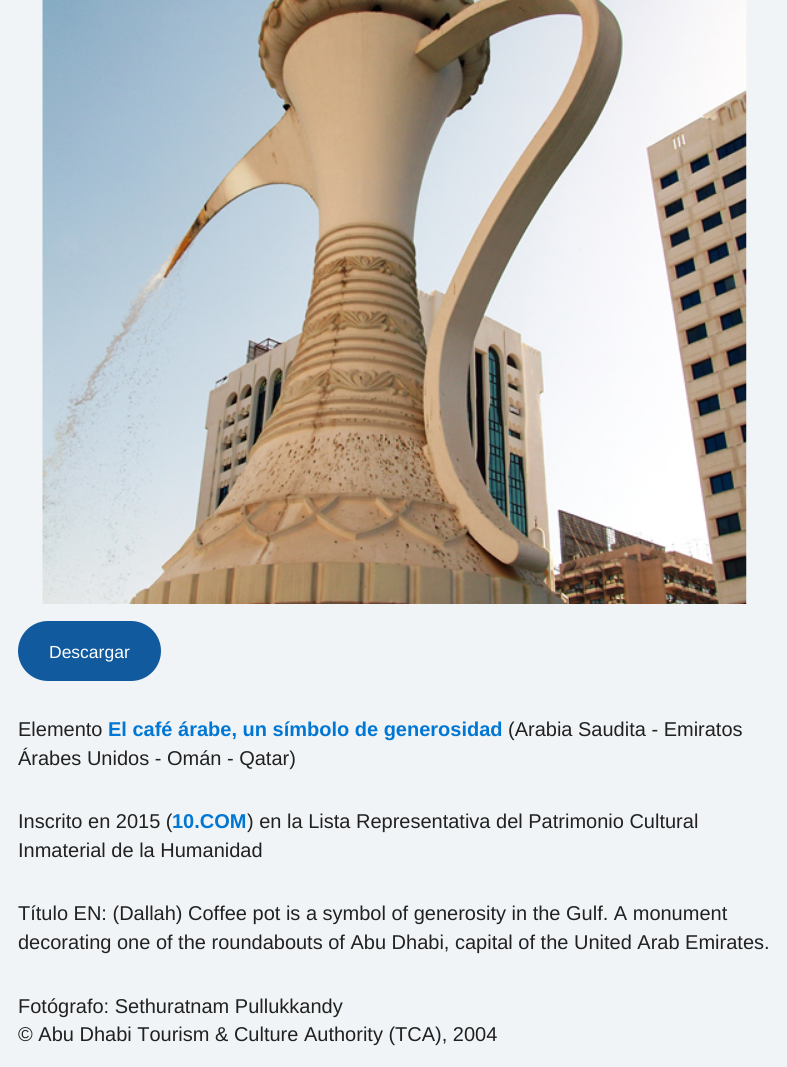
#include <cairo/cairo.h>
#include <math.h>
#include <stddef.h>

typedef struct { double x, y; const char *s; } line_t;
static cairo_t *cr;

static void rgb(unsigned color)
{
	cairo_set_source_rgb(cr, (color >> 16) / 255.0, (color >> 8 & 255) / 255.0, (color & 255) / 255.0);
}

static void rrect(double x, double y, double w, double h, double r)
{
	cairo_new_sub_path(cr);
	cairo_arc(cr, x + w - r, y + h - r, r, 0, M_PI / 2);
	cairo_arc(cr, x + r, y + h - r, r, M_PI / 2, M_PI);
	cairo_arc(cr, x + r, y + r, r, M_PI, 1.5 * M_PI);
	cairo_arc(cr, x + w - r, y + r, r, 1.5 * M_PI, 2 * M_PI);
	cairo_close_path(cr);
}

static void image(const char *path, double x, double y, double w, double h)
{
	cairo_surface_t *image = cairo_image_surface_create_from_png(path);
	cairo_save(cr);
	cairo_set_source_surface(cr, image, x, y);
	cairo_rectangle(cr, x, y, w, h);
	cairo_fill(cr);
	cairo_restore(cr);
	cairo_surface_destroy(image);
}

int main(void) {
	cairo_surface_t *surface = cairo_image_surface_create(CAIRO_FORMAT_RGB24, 787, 1067);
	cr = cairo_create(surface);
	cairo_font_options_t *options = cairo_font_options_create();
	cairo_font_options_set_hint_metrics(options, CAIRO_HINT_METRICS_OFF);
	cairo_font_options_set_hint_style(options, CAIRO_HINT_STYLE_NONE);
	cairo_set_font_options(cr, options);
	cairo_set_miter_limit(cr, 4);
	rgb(0xf1f4f6);
	cairo_paint(cr);
	image("img/1.png", 42, 0, 705, 604);
	rgb(0x115a9e);
	rrect(18, 621, 143, 60, 30);
	cairo_fill(cr);
	cairo_select_font_face(cr, "Liberation Sans", CAIRO_FONT_SLANT_NORMAL, CAIRO_FONT_WEIGHT_NORMAL);
	cairo_set_font_size(cr, 17.5);
	rgb(0xffffff);
	cairo_move_to(cr, 49, 658);
	cairo_show_text(cr, "Descargar");
	cairo_set_font_size(cr, 20);
	rgb(0x212121);
	cairo_move_to(cr, 18, 736);
	cairo_show_text(cr, "Elemento");
	cairo_select_font_face(cr, "Liberation Sans", CAIRO_FONT_SLANT_NORMAL, CAIRO_FONT_WEIGHT_BOLD);
	rgb(0x0077d4);
	cairo_move_to(cr, 108, 736);
	cairo_show_text(cr, "El café árabe, un símbolo de generosidad");
	cairo_select_font_face(cr, "Liberation Sans", CAIRO_FONT_SLANT_NORMAL, CAIRO_FONT_WEIGHT_NORMAL);
	rgb(0x212121);
	{
		static const line_t items[] = {
			{508, 736, "(Arabia Saudita - Emiratos"},
			{18, 765, "Árabes Unidos - Omán - Qatar)"},
			{18, 828, "Inscrito en 2015 ("},
		};
		for (size_t i = 0; i < sizeof items / sizeof *items; i++) {
			cairo_move_to(cr, items[i].x, items[i].y);
			cairo_show_text(cr, items[i].s);
		}
	}
	cairo_select_font_face(cr, "Liberation Sans", CAIRO_FONT_SLANT_NORMAL, CAIRO_FONT_WEIGHT_BOLD);
	rgb(0x0077d4);
	cairo_move_to(cr, 172, 828);
	cairo_show_text(cr, "10.COM");
	cairo_select_font_face(cr, "Liberation Sans", CAIRO_FONT_SLANT_NORMAL, CAIRO_FONT_WEIGHT_NORMAL);
	rgb(0x212121);
	{
		static const line_t items[] = {
			{247, 828, ") en la Lista Representativa del Patrimonio Cultural"},
			{18, 857, "Inmaterial de la Humanidad"},
			{18, 920, "Título EN: (Dallah) Coffee pot is a symbol of generosity in the Gulf. A monument"},
			{18, 949, "decorating one of the roundabouts of Abu Dhabi, capital of the United Arab Emirates."},
			{18, 1013, "Fotógrafo: Sethuratnam Pullukkandy"},
			{18, 1041, "© Abu Dhabi Tourism & Culture Authority (TCA), 2004"},
		};
		for (size_t i = 0; i < sizeof items / sizeof *items; i++) {
			cairo_move_to(cr, items[i].x, items[i].y);
			cairo_show_text(cr, items[i].s);
		}
	}
	cairo_surface_write_to_png(surface, "page.png");
	cairo_font_options_destroy(options);
	cairo_destroy(cr);
	cairo_surface_destroy(surface);
	return 0;
}
